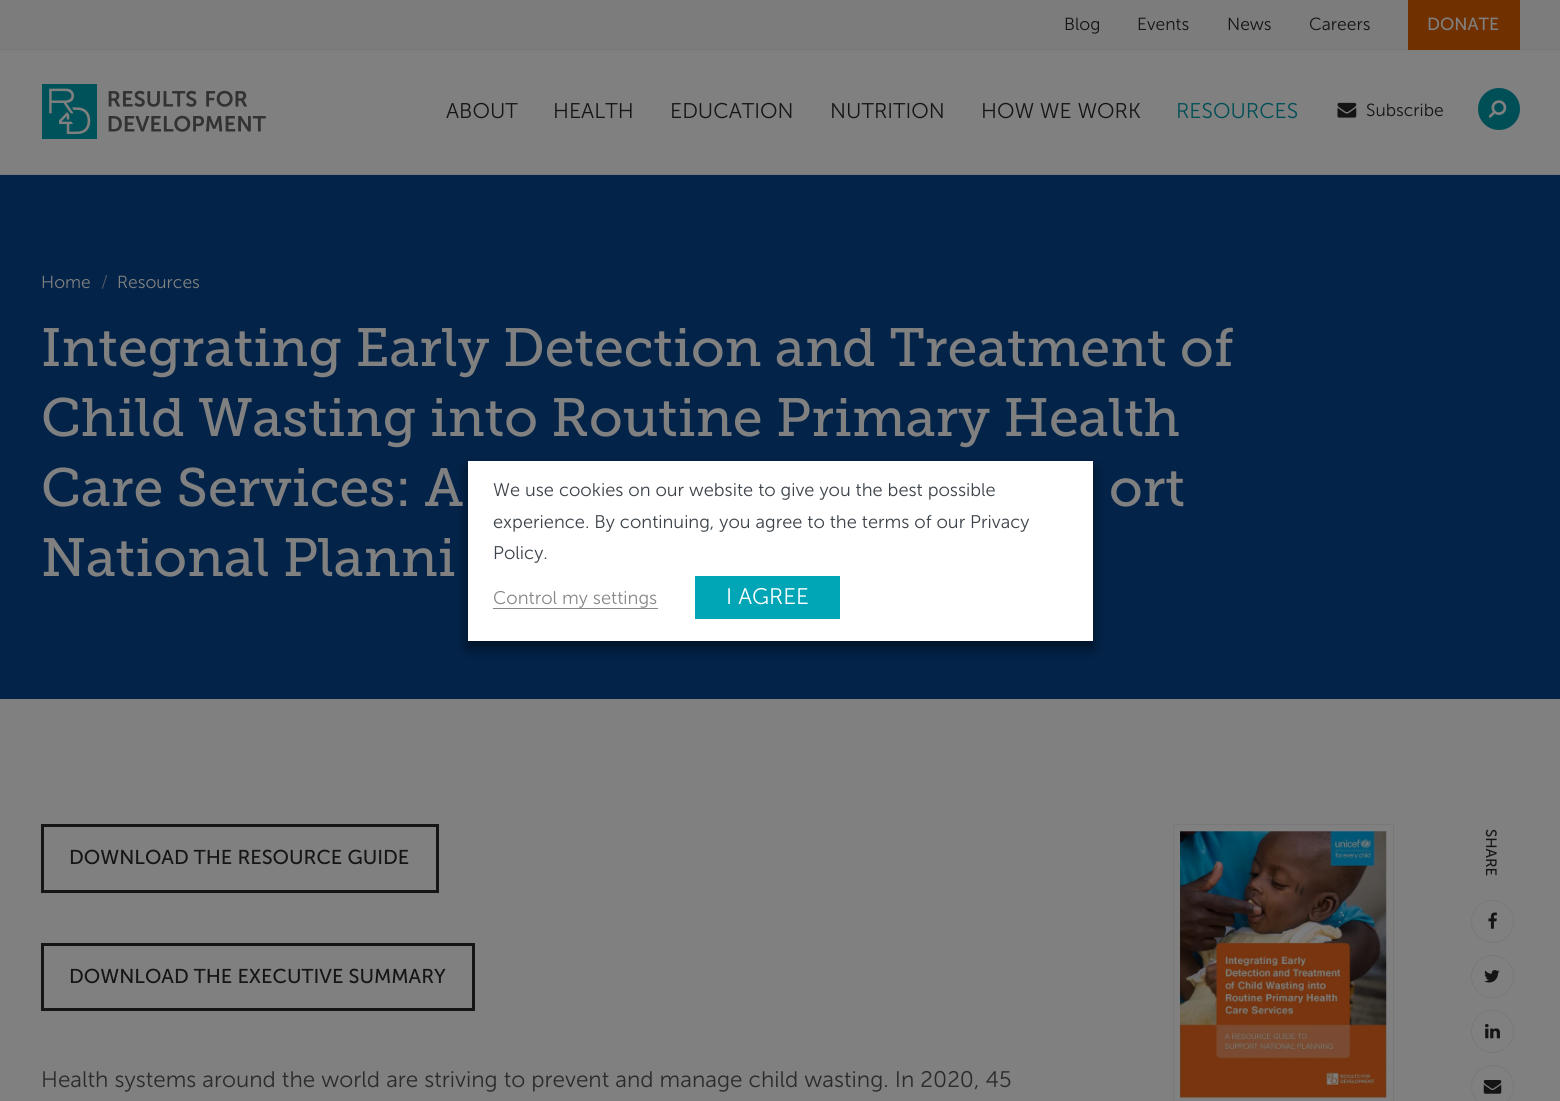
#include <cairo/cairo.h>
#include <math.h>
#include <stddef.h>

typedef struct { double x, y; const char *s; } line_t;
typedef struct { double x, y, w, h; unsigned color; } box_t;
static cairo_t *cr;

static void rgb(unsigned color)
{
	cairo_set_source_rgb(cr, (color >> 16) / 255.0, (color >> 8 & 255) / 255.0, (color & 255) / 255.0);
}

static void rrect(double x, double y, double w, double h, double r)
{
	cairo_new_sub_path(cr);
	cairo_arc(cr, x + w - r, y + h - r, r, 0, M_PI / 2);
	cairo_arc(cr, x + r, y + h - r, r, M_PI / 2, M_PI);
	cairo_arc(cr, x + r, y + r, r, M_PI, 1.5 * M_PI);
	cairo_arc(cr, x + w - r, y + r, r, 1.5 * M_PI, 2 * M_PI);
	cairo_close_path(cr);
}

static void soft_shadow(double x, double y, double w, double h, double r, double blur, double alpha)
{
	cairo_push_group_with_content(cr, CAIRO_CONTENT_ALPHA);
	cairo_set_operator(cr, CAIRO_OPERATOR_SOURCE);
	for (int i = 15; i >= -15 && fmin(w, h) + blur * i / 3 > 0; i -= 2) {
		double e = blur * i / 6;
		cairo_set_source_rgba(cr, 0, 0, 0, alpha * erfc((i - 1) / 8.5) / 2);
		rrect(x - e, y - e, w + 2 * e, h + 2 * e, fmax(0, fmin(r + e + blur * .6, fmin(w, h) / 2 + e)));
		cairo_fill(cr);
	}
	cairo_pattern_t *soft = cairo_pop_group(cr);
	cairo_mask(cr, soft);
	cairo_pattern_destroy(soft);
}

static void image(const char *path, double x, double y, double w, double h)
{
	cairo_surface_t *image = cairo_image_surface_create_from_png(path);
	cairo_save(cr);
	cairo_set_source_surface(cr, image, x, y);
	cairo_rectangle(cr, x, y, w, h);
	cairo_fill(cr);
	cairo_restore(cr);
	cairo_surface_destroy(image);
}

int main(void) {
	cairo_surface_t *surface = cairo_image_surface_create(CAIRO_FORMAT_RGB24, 1560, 1101);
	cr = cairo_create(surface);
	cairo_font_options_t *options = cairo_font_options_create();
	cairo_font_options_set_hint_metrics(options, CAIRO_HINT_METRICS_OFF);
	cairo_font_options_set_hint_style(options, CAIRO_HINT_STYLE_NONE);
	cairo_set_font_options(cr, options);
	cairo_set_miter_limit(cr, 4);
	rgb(0x808080);
	cairo_paint(cr);
	{
		static const box_t items[] = {
			{0, 174, 1560, 1, 0x787878},
			{0, 0, 1560, 49, 0x7c7c7c},
			{0, 49, 1560, 1, 0x787878},
			{1408, 0, 112, 50, 0x703000},
		};
		for (size_t i = 0; i < sizeof items / sizeof *items; i++) {
			rgb(items[i].color);
			cairo_rectangle(cr, items[i].x, items[i].y, items[i].w, items[i].h);
			cairo_fill(cr);
		}
	}
	image("img/1.png", 42, 84, 224, 55);
	image("img/2.png", 1337, 102, 20, 16);
	rgb(0x004f56);
	cairo_arc(cr, 1499, 109, 21, 0, 2 * M_PI);
	cairo_fill(cr);
	image("img/3.png", 1488, 100, 19, 18);
	rgb(0x032348);
	cairo_rectangle(cr, 0, 175, 1560, 524);
	cairo_fill(cr);
	cairo_rectangle(cr, 42.5, 825.5, 395, 66);
	rgb(0x151515);
	cairo_set_line_width(cr, 3);
	cairo_stroke(cr);
	cairo_rectangle(cr, 42.5, 944.5, 431, 65);
	cairo_stroke(cr);
	cairo_rectangle(cr, 1173.5, 824.5, 220, 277);
	rgb(0x787878);
	cairo_set_line_width(cr, 1);
	cairo_stroke(cr);
	image("img/4.png", 1180, 831, 207, 267);
	cairo_arc(cr, 1492.5, 921.5, 21, 0, 2 * M_PI);
	cairo_stroke(cr);
	image("img/5.png", 1488, 912, 9, 17);
	cairo_arc(cr, 1492.5, 976.5, 21, 0, 2 * M_PI);
	cairo_stroke(cr);
	image("img/6.png", 1484, 970, 16, 13);
	cairo_arc(cr, 1492.5, 1031.5, 21, 0, 2 * M_PI);
	cairo_stroke(cr);
	image("img/7.png", 1485, 1024, 15, 15);
	cairo_arc(cr, 1492.5, 1086.5, 21, 0, 2 * M_PI);
	cairo_stroke(cr);
	image("img/8.png", 1483, 1080, 19, 14);
	rgb(0x000000);
	soft_shadow(468, 468, 625, 180, 0, 6, 0.5);
	{
		static const box_t items[] = {
			{468, 461, 625, 180, 0xffffff},
			{493, 608, 165, 1, 0x898888},
			{695, 576, 145, 43, 0x00a6b6},
		};
		for (size_t i = 0; i < sizeof items / sizeof *items; i++) {
			rgb(items[i].color);
			cairo_rectangle(cr, items[i].x, items[i].y, items[i].w, items[i].h);
			cairo_fill(cr);
		}
	}
	cairo_select_font_face(cr, "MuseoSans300", CAIRO_FONT_SLANT_NORMAL, CAIRO_FONT_WEIGHT_NORMAL);
	cairo_set_font_size(cr, 17.5);
	rgb(0x151515);
	{
		static const line_t items[] = {
			{1064, 30, "Blog"},
			{1137, 30, "Events"},
			{1227, 30, "News"},
			{1309, 30, "Careers"},
		};
		for (size_t i = 0; i < sizeof items / sizeof *items; i++) {
			cairo_move_to(cr, items[i].x, items[i].y);
			cairo_show_text(cr, items[i].s);
		}
	}
	cairo_select_font_face(cr, "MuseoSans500", CAIRO_FONT_SLANT_NORMAL, CAIRO_FONT_WEIGHT_NORMAL);
	rgb(0x808080);
	cairo_move_to(cr, 1427, 30);
	cairo_show_text(cr, "DONATE");
	cairo_select_font_face(cr, "MuseoSans300", CAIRO_FONT_SLANT_NORMAL, CAIRO_FONT_WEIGHT_NORMAL);
	cairo_set_font_size(cr, 21.25);
	rgb(0x151515);
	{
		static const line_t items[] = {
			{446, 118, "ABOUT"},
			{553, 118, "HEALTH"},
			{670, 118, "EDUCATION"},
			{830, 118, "NUTRITION"},
			{981, 118, "HOW WE WORK"},
		};
		for (size_t i = 0; i < sizeof items / sizeof *items; i++) {
			cairo_move_to(cr, items[i].x, items[i].y);
			cairo_show_text(cr, items[i].s);
		}
	}
	rgb(0x004f56);
	cairo_move_to(cr, 1176, 118);
	cairo_show_text(cr, "RESOURCES");
	cairo_set_font_size(cr, 17.5);
	rgb(0x151515);
	cairo_move_to(cr, 1366, 116);
	cairo_show_text(cr, "Subscribe");
	rgb(0x808080);
	cairo_move_to(cr, 41, 288);
	cairo_show_text(cr, "Home");
	rgb(0x4e5b69);
	cairo_move_to(cr, 101, 288);
	cairo_show_text(cr, "/");
	rgb(0x808080);
	cairo_move_to(cr, 117, 288);
	cairo_show_text(cr, "Resources");
	cairo_select_font_face(cr, "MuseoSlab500", CAIRO_FONT_SLANT_NORMAL, CAIRO_FONT_WEIGHT_NORMAL);
	cairo_set_font_size(cr, 53.75);
	{
		static const line_t items[] = {
			{41, 366, "Integrating Early Detection and Treatment of"},
			{41, 436, "Child Wasting into Routine Primary Health"},
			{41, 506, "Care Services: A"},
			{1109, 506, "ort"},
			{41, 576, "National Planni"},
		};
		for (size_t i = 0; i < sizeof items / sizeof *items; i++) {
			cairo_move_to(cr, items[i].x, items[i].y);
			cairo_show_text(cr, items[i].s);
		}
	}
	cairo_select_font_face(cr, "MuseoSans500", CAIRO_FONT_SLANT_NORMAL, CAIRO_FONT_WEIGHT_NORMAL);
	cairo_set_font_size(cr, 20);
	rgb(0x151515);
	cairo_move_to(cr, 69, 864);
	cairo_show_text(cr, "DOWNLOAD THE RESOURCE GUIDE");
	cairo_move_to(cr, 69, 983);
	cairo_show_text(cr, "DOWNLOAD THE EXECUTIVE SUMMARY");
	cairo_select_font_face(cr, "MuseoSans300", CAIRO_FONT_SLANT_NORMAL, CAIRO_FONT_WEIGHT_NORMAL);
	cairo_set_font_size(cr, 22.5);
	rgb(0x2b2b2b);
	cairo_move_to(cr, 41, 1087);
	cairo_show_text(cr, "Health systems around the world are striving to prevent and manage child wasting. In 2020, 45");
	cairo_select_font_face(cr, "MuseoSans500", CAIRO_FONT_SLANT_NORMAL, CAIRO_FONT_WEIGHT_NORMAL);
	cairo_set_font_size(cr, 15);
	rgb(0x151515);
	cairo_save(cr);
	cairo_translate(cr, 1486, 829);
	cairo_rotate(cr, 90 * M_PI / 180);
	cairo_move_to(cr, 0, 0);
	cairo_show_text(cr, "SHARE");
	cairo_restore(cr);
	cairo_select_font_face(cr, "MuseoSans300", CAIRO_FONT_SLANT_NORMAL, CAIRO_FONT_WEIGHT_NORMAL);
	cairo_set_font_size(cr, 18.3);
	rgb(0x3c434a);
	{
		static const line_t items[] = {
			{493, 496, "We use cookies on our website to give you the best possible"},
			{493, 528, "experience. By continuing, you agree to the terms of our Privacy"},
			{493, 559, "Policy."},
		};
		for (size_t i = 0; i < sizeof items / sizeof *items; i++) {
			cairo_move_to(cr, items[i].x, items[i].y);
			cairo_show_text(cr, items[i].s);
		}
	}
	rgb(0x898888);
	cairo_move_to(cr, 493, 604);
	cairo_show_text(cr, "Control my settings");
	cairo_set_font_size(cr, 22.5);
	rgb(0xffffff);
	cairo_move_to(cr, 726, 604);
	cairo_show_text(cr, "I AGREE");
	cairo_surface_write_to_png(surface, "page.png");
	cairo_font_options_destroy(options);
	cairo_destroy(cr);
	cairo_surface_destroy(surface);
	return 0;
}
